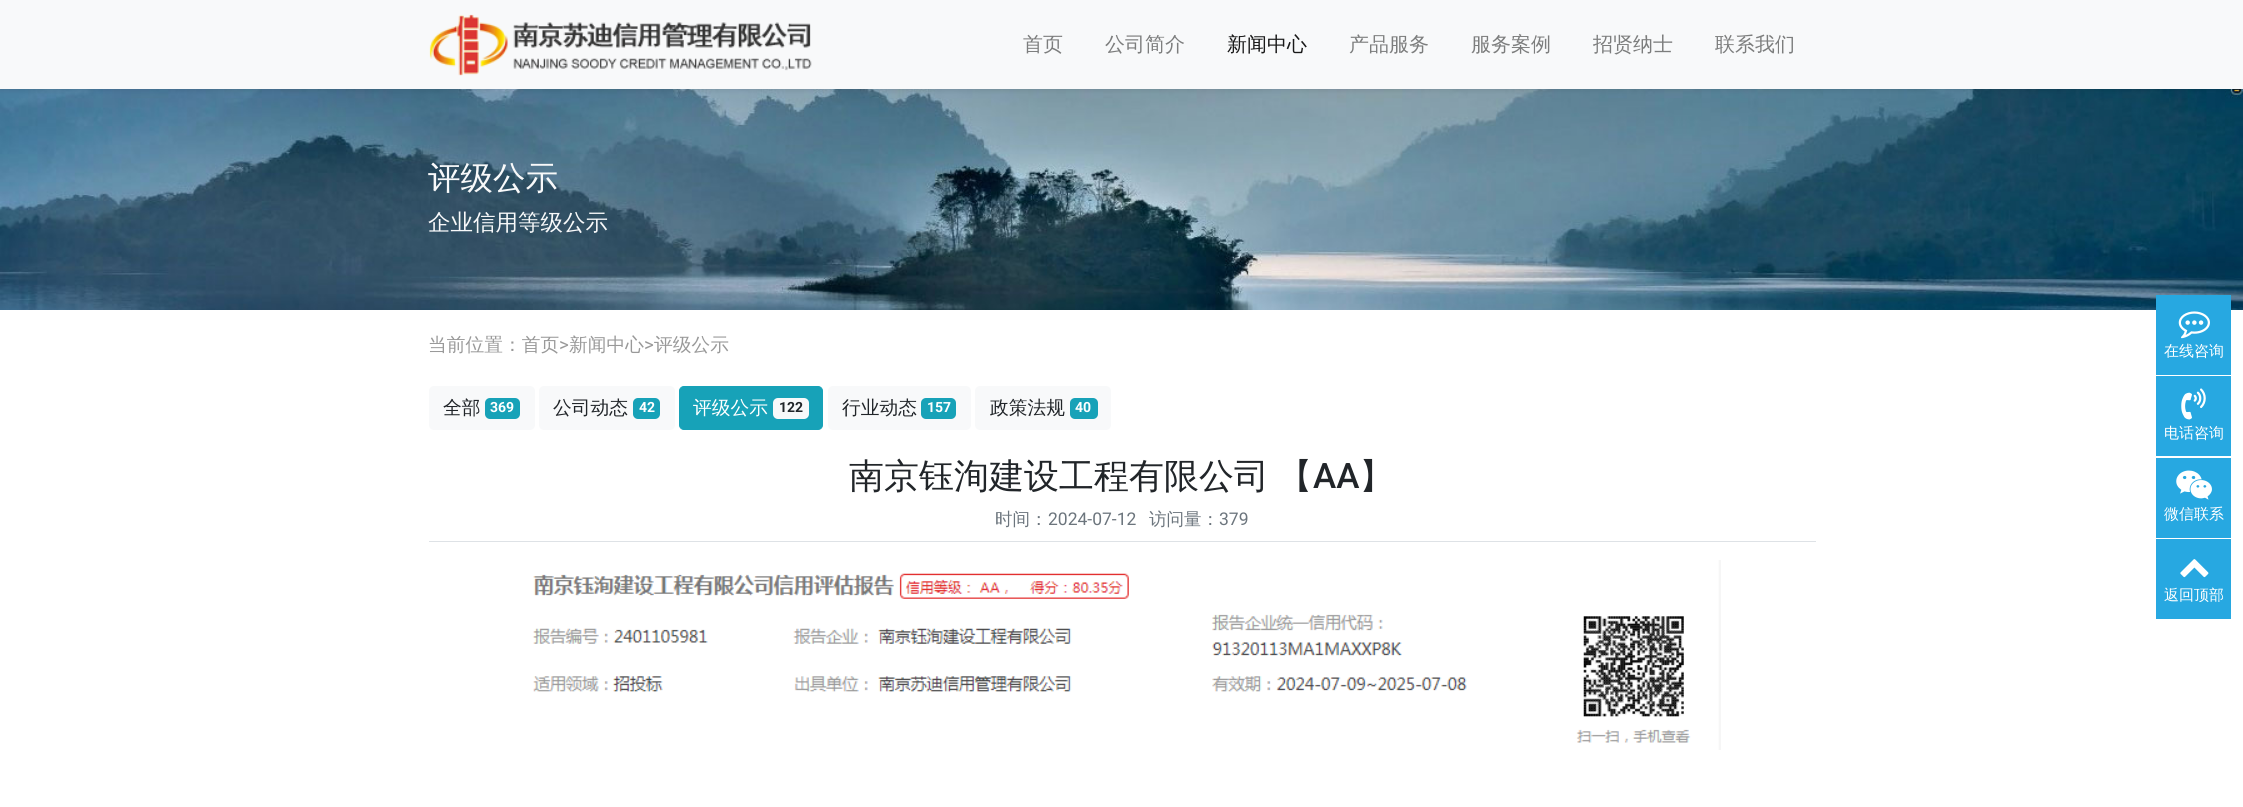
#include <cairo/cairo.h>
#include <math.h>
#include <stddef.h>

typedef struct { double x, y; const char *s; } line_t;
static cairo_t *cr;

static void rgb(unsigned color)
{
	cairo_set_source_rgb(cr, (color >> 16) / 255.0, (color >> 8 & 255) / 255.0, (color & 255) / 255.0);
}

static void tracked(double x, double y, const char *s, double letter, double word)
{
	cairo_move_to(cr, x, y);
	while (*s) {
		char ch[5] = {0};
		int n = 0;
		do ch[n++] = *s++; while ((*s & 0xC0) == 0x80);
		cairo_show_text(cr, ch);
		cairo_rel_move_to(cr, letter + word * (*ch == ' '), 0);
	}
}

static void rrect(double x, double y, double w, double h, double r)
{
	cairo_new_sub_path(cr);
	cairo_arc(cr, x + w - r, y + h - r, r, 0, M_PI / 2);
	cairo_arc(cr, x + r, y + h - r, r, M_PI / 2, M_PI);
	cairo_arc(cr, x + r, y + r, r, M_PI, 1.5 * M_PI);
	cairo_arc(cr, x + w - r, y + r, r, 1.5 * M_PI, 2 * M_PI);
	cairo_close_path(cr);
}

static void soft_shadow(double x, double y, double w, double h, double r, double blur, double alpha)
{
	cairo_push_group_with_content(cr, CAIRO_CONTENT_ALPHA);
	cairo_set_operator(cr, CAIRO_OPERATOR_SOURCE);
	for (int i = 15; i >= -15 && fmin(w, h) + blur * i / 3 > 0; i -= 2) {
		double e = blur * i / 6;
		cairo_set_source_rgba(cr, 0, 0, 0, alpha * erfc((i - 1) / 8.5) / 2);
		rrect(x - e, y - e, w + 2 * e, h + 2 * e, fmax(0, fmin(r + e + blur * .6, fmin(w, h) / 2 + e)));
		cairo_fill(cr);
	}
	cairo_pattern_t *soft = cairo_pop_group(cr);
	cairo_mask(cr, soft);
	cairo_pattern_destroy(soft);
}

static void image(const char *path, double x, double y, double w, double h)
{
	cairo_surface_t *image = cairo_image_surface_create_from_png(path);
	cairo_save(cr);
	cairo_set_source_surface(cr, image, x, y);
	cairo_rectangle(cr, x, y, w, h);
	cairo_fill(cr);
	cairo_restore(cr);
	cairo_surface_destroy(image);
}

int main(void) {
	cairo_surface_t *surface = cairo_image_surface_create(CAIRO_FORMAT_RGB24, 2243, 807);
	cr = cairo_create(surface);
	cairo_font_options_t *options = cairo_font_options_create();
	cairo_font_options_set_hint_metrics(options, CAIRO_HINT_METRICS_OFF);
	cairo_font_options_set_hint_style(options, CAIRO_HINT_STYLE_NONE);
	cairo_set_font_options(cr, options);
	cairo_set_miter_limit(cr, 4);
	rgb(0xffffff);
	cairo_paint(cr);
	image("img/2.png", 0, 89, 2243, 221);
	rgb(0x000000);
	soft_shadow(0, 3, 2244, 88, 0, 2, 0.07);
	rgb(0xf8f9fa);
	cairo_rectangle(cr, 0, 0, 2243, 89);
	cairo_fill(cr);
	image("img/1.png", 429, 14, 383, 62);
	rrect(429, 386, 106, 44, 5);
	cairo_fill(cr);
	rgb(0x17a2b8);
	rrect(485, 398, 35, 21, 5);
	cairo_fill(cr);
	rgb(0xf8f9fa);
	rrect(539, 386, 136, 44, 5);
	cairo_fill(cr);
	rgb(0x17a2b8);
	rrect(633, 398, 27, 21, 5);
	cairo_fill(cr);
	rrect(679.5, 386.5, 143, 43, 4.5);
	cairo_fill_preserve(cr);
	cairo_set_line_width(cr, 1);
	cairo_stroke(cr);
	rgb(0xf8f9fa);
	rrect(773, 398, 36, 21, 5);
	cairo_fill(cr);
	rrect(828, 386, 143, 44, 5);
	cairo_fill(cr);
	rgb(0x17a2b8);
	rrect(921, 398, 35, 21, 5);
	cairo_fill(cr);
	rgb(0xf8f9fa);
	rrect(975, 386, 136, 44, 5);
	cairo_fill(cr);
	rgb(0x17a2b8);
	rrect(1070, 398, 28, 21, 5);
	cairo_fill(cr);
	rgb(0xdee2e6);
	cairo_rectangle(cr, 429, 541, 1387, 1);
	cairo_fill(cr);
	image("img/3.png", 532, 560, 1189, 190);
	rgb(0x27a8e1);
	cairo_rectangle(cr, 2156, 295, 75, 80);
	cairo_fill(cr);
	image("img/4.png", 2178, 311, 32, 28);
	cairo_rectangle(cr, 2156, 376, 75, 80);
	cairo_fill(cr);
	image("img/5.png", 2181, 388, 25, 32);
	cairo_rectangle(cr, 2156, 458, 75, 80);
	cairo_fill(cr);
	image("img/6.png", 2176, 470, 36, 30);
	cairo_rectangle(cr, 2156, 539, 75, 80);
	cairo_fill(cr);
	image("img/7.png", 2180, 559, 29, 19);
	cairo_select_font_face(cr, "WenQuanYi Zen Hei Medium", CAIRO_FONT_SLANT_NORMAL, CAIRO_FONT_WEIGHT_NORMAL);
	cairo_set_font_size(cr, 20);
	rgb(0x7c7d7d);
	cairo_move_to(cr, 1023, 51);
	cairo_show_text(cr, "首页");
	cairo_move_to(cr, 1105, 51);
	cairo_show_text(cr, "公司简介");
	rgb(0x191919);
	cairo_move_to(cr, 1227, 51);
	cairo_show_text(cr, "新闻中心");
	rgb(0x7c7d7d);
	{
		static const line_t items[] = {
			{1349, 51, "产品服务"},
			{1471, 51, "服务案例"},
			{1593, 51, "招贤纳士"},
			{1715, 51, "联系我们"},
		};
		for (size_t i = 0; i < sizeof items / sizeof *items; i++) {
			cairo_move_to(cr, items[i].x, items[i].y);
			cairo_show_text(cr, items[i].s);
		}
	}
	cairo_set_font_size(cr, 32.5);
	rgb(0xf8f9fa);
	cairo_move_to(cr, 428, 189);
	cairo_show_text(cr, "评级公示");
	cairo_set_font_size(cr, 22.5);
	cairo_move_to(cr, 428, 230);
	cairo_show_text(cr, "企业信用等级公示");
	cairo_set_font_size(cr, 18.75);
	rgb(0x999999);
	cairo_move_to(cr, 428, 351);
	cairo_show_text(cr, "当前位置：首页");
	cairo_select_font_face(cr, "Roboto", CAIRO_FONT_SLANT_NORMAL, CAIRO_FONT_WEIGHT_NORMAL);
	cairo_move_to(cr, 559, 351);
	cairo_show_text(cr, ">");
	cairo_select_font_face(cr, "WenQuanYi Zen Hei Medium", CAIRO_FONT_SLANT_NORMAL, CAIRO_FONT_WEIGHT_NORMAL);
	cairo_move_to(cr, 569, 351);
	cairo_show_text(cr, "新闻中心");
	cairo_select_font_face(cr, "Roboto", CAIRO_FONT_SLANT_NORMAL, CAIRO_FONT_WEIGHT_NORMAL);
	cairo_move_to(cr, 644, 351);
	cairo_show_text(cr, ">");
	cairo_select_font_face(cr, "WenQuanYi Zen Hei Medium", CAIRO_FONT_SLANT_NORMAL, CAIRO_FONT_WEIGHT_NORMAL);
	cairo_move_to(cr, 654, 351);
	cairo_show_text(cr, "评级公示");
	rgb(0x212529);
	cairo_move_to(cr, 443, 414);
	cairo_show_text(cr, "全部");
	cairo_select_font_face(cr, "Roboto", CAIRO_FONT_SLANT_NORMAL, CAIRO_FONT_WEIGHT_BOLD);
	cairo_set_font_size(cr, 14);
	rgb(0xffffff);
	cairo_move_to(cr, 490, 412);
	cairo_show_text(cr, "369");
	cairo_select_font_face(cr, "WenQuanYi Zen Hei Medium", CAIRO_FONT_SLANT_NORMAL, CAIRO_FONT_WEIGHT_NORMAL);
	cairo_set_font_size(cr, 18.75);
	rgb(0x212529);
	cairo_move_to(cr, 553, 414);
	cairo_show_text(cr, "公司动态");
	cairo_select_font_face(cr, "Roboto", CAIRO_FONT_SLANT_NORMAL, CAIRO_FONT_WEIGHT_BOLD);
	cairo_set_font_size(cr, 14);
	rgb(0xffffff);
	cairo_move_to(cr, 639, 412);
	cairo_show_text(cr, "42");
	cairo_select_font_face(cr, "WenQuanYi Zen Hei Medium", CAIRO_FONT_SLANT_NORMAL, CAIRO_FONT_WEIGHT_NORMAL);
	cairo_set_font_size(cr, 18.75);
	cairo_move_to(cr, 693, 414);
	cairo_show_text(cr, "评级公示");
	cairo_select_font_face(cr, "Roboto", CAIRO_FONT_SLANT_NORMAL, CAIRO_FONT_WEIGHT_BOLD);
	cairo_set_font_size(cr, 14);
	rgb(0x212529);
	cairo_move_to(cr, 779, 412);
	cairo_show_text(cr, "122");
	cairo_select_font_face(cr, "WenQuanYi Zen Hei Medium", CAIRO_FONT_SLANT_NORMAL, CAIRO_FONT_WEIGHT_NORMAL);
	cairo_set_font_size(cr, 18.75);
	cairo_move_to(cr, 842, 414);
	cairo_show_text(cr, "行业动态");
	cairo_select_font_face(cr, "Roboto", CAIRO_FONT_SLANT_NORMAL, CAIRO_FONT_WEIGHT_BOLD);
	cairo_set_font_size(cr, 14);
	rgb(0xffffff);
	cairo_move_to(cr, 927, 412);
	cairo_show_text(cr, "157");
	cairo_select_font_face(cr, "WenQuanYi Zen Hei Medium", CAIRO_FONT_SLANT_NORMAL, CAIRO_FONT_WEIGHT_NORMAL);
	cairo_set_font_size(cr, 18.75);
	rgb(0x212529);
	cairo_move_to(cr, 990, 414);
	cairo_show_text(cr, "政策法规");
	cairo_select_font_face(cr, "Roboto", CAIRO_FONT_SLANT_NORMAL, CAIRO_FONT_WEIGHT_BOLD);
	cairo_set_font_size(cr, 14);
	rgb(0xffffff);
	cairo_move_to(cr, 1075, 412);
	cairo_show_text(cr, "40");
	cairo_select_font_face(cr, "WenQuanYi Zen Hei Medium", CAIRO_FONT_SLANT_NORMAL, CAIRO_FONT_WEIGHT_NORMAL);
	cairo_set_font_size(cr, 35);
	rgb(0x212529);
	tracked(849, 488, "南京钰洵建设工程有限公司 【", 0, -2);
	cairo_select_font_face(cr, "Roboto Medium", CAIRO_FONT_SLANT_NORMAL, CAIRO_FONT_WEIGHT_NORMAL);
	cairo_move_to(cr, 1313, 488);
	cairo_show_text(cr, "AA");
	cairo_select_font_face(cr, "WenQuanYi Zen Hei Medium", CAIRO_FONT_SLANT_NORMAL, CAIRO_FONT_WEIGHT_NORMAL);
	cairo_move_to(cr, 1359, 488);
	cairo_show_text(cr, "】");
	cairo_set_font_size(cr, 17.5);
	rgb(0x6c757d);
	cairo_move_to(cr, 995, 525);
	cairo_show_text(cr, "时间：");
	cairo_select_font_face(cr, "Roboto", CAIRO_FONT_SLANT_NORMAL, CAIRO_FONT_WEIGHT_NORMAL);
	cairo_move_to(cr, 1048, 525);
	cairo_show_text(cr, "2024-07-12");
	cairo_select_font_face(cr, "WenQuanYi Zen Hei Medium", CAIRO_FONT_SLANT_NORMAL, CAIRO_FONT_WEIGHT_NORMAL);
	cairo_move_to(cr, 1149, 525);
	cairo_show_text(cr, "访问量：");
	cairo_select_font_face(cr, "Roboto", CAIRO_FONT_SLANT_NORMAL, CAIRO_FONT_WEIGHT_NORMAL);
	cairo_move_to(cr, 1219, 525);
	cairo_show_text(cr, "379");
	cairo_select_font_face(cr, "WenQuanYi Zen Hei Medium", CAIRO_FONT_SLANT_NORMAL, CAIRO_FONT_WEIGHT_NORMAL);
	cairo_set_font_size(cr, 15);
	rgb(0xffffff);
	{
		static const line_t items[] = {
			{2164, 356, "在线咨询"},
			{2164, 438, "电话咨询"},
			{2164, 519, "微信联系"},
			{2164, 600, "返回顶部"},
		};
		for (size_t i = 0; i < sizeof items / sizeof *items; i++) {
			cairo_move_to(cr, items[i].x, items[i].y);
			cairo_show_text(cr, items[i].s);
		}
	}
	cairo_surface_write_to_png(surface, "page.png");
	cairo_font_options_destroy(options);
	cairo_destroy(cr);
	cairo_surface_destroy(surface);
	return 0;
}
